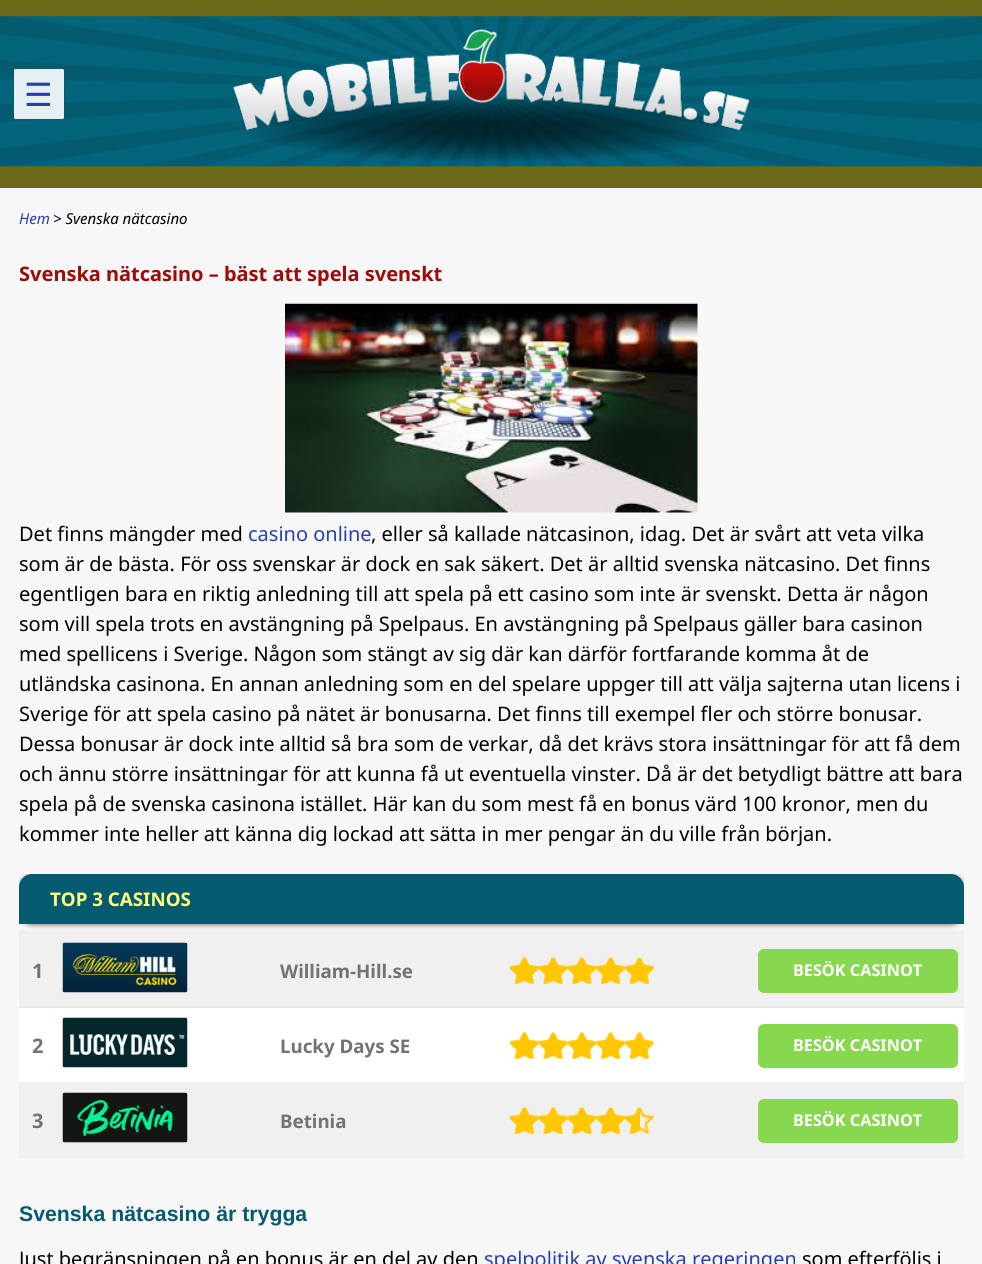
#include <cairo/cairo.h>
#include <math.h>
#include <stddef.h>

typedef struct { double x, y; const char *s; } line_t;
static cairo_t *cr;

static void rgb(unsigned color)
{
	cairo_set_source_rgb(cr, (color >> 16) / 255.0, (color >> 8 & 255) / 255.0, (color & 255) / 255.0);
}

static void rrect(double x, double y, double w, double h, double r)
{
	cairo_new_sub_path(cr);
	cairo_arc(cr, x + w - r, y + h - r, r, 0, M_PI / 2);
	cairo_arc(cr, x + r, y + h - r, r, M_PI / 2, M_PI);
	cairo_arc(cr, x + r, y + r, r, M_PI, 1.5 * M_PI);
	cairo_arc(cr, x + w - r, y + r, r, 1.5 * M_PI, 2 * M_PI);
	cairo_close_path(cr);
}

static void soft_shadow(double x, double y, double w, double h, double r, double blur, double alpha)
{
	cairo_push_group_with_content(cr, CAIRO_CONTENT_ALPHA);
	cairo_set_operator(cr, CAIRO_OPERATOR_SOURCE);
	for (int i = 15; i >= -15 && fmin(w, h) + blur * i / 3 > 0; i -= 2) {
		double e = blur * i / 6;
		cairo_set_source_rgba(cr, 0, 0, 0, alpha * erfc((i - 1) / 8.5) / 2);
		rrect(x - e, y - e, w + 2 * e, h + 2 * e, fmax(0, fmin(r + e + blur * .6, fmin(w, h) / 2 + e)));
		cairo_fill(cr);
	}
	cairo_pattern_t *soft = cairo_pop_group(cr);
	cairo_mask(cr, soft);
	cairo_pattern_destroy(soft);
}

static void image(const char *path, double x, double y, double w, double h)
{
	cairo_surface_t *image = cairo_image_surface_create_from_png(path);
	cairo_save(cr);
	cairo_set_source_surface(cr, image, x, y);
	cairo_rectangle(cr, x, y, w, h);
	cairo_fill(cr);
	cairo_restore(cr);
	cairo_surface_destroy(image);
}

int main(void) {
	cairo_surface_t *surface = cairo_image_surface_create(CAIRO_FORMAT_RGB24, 982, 1264);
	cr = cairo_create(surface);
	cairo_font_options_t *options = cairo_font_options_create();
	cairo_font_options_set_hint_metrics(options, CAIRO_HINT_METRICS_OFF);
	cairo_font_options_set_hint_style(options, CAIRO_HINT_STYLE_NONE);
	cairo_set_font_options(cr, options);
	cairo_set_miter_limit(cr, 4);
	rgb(0xf7f7f7);
	cairo_paint(cr);
	rgb(0x696918);
	cairo_rectangle(cr, 0, 0, 982, 188);
	cairo_fill(cr);
	image("img/1.png", 0, 16, 982, 151);
	cairo_set_source_rgba(cr, 1, 1, 1, 0.9);
	rrect(13.5, 68.5, 51, 51, 2);
	cairo_fill_preserve(cr);
	rgb(0x045b70);
	cairo_set_line_width(cr, 1);
	cairo_stroke(cr);
	image("img/2.png", 285, 303, 413, 210);
	cairo_save(cr);
	cairo_rectangle(cr, 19, 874, 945, 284);
	cairo_clip(cr);
	rgb(0x000000);
	soft_shadow(19, 875, 945, 50, 13, 2.5, 0.5);
	cairo_restore(cr);
	cairo_new_path(cr);
	cairo_move_to(cr, 32, 874);
	cairo_line_to(cr, 951, 874);
	cairo_curve_to(cr, 958, 874, 964, 880, 964, 887);
	cairo_line_to(cr, 964, 924);
	cairo_line_to(cr, 19, 924);
	cairo_line_to(cr, 19, 887);
	cairo_curve_to(cr, 19, 880, 25, 874, 32, 874);
	cairo_close_path(cr);
	cairo_fill(cr);
	cairo_save(cr);
	cairo_rectangle(cr, 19, 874, 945, 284);
	cairo_clip(cr);
	rgb(0x000000);
	soft_shadow(19, 934, 945, 75, 0, 2, 0.2);
	cairo_restore(cr);
	rgb(0xf0f0f0);
	cairo_rectangle(cr, 19, 933, 945, 75);
	cairo_fill(cr);
	image("img/3.png", 62, 942, 126, 51);
	image("img/4.png", 510, 957, 144, 27);
	image("img/5.png", 510, 957, 144, 27);
	rgb(0x87d84f);
	rrect(758, 949, 200, 44, 6);
	cairo_fill(cr);
	cairo_save(cr);
	cairo_rectangle(cr, 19, 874, 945, 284);
	cairo_clip(cr);
	rgb(0x000000);
	soft_shadow(19, 1009, 945, 75, 0, 2, 0.2);
	cairo_restore(cr);
	rgb(0xffffff);
	cairo_rectangle(cr, 19, 1008, 945, 75);
	cairo_fill(cr);
	image("img/6.png", 62, 1017, 126, 51);
	image("img/7.png", 510, 1032, 144, 27);
	image("img/8.png", 510, 1032, 144, 27);
	rgb(0x87d84f);
	rrect(758, 1024, 200, 44, 6);
	cairo_fill(cr);
	cairo_save(cr);
	cairo_rectangle(cr, 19, 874, 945, 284);
	cairo_clip(cr);
	rgb(0x000000);
	soft_shadow(19, 1084, 945, 75, 0, 2, 0.2);
	cairo_restore(cr);
	rgb(0xf0f0f0);
	cairo_rectangle(cr, 19, 1083, 945, 75);
	cairo_fill(cr);
	image("img/9.png", 62, 1092, 126, 51);
	image("img/10.png", 510, 1107, 144, 27);
	image("img/11.png", 510, 1107, 130, 27);
	rgb(0x87d84f);
	rrect(758, 1099, 200, 44, 6);
	cairo_fill(cr);
	cairo_select_font_face(cr, "DejaVu Sans", CAIRO_FONT_SLANT_NORMAL, CAIRO_FONT_WEIGHT_NORMAL);
	cairo_set_font_size(cr, 32);
	rgb(0x283eb5);
	cairo_move_to(cr, 24, 106);
	cairo_show_text(cr, "☰");
	cairo_select_font_face(cr, "Noto Sans", CAIRO_FONT_SLANT_ITALIC, CAIRO_FONT_WEIGHT_NORMAL);
	cairo_set_font_size(cr, 15);
	cairo_move_to(cr, 19, 224);
	cairo_show_text(cr, "Hem");
	rgb(0x000000);
	cairo_move_to(cr, 53, 224);
	cairo_show_text(cr, "> Svenska nätcasino");
	cairo_select_font_face(cr, "Noto Sans", CAIRO_FONT_SLANT_NORMAL, CAIRO_FONT_WEIGHT_BOLD);
	cairo_set_font_size(cr, 20);
	rgb(0x9d0c0a);
	cairo_move_to(cr, 19, 281);
	cairo_show_text(cr, "Svenska nätcasino – bäst att spela svenskt");
	cairo_select_font_face(cr, "Noto Sans", CAIRO_FONT_SLANT_NORMAL, CAIRO_FONT_WEIGHT_NORMAL);
	rgb(0x000000);
	cairo_move_to(cr, 19, 541);
	cairo_show_text(cr, "Det finns mängder med");
	rgb(0x283eb5);
	cairo_move_to(cr, 248, 541);
	cairo_show_text(cr, "casino online");
	rgb(0x000000);
	{
		static const line_t items[] = {
			{371, 541, ", eller så kallade nätcasinon, idag. Det är svårt att veta vilka"},
			{19, 571, "som är de bästa. För oss svenskar är dock en sak säkert. Det är alltid svenska nätcasino. Det finns"},
			{19, 601, "egentligen bara en riktig anledning till att spela på ett casino som inte är svenskt. Detta är någon"},
			{19, 631, "som vill spela trots en avstängning på Spelpaus. En avstängning på Spelpaus gäller bara casinon"},
			{19, 661, "med spellicens i Sverige. Någon som stängt av sig där kan därför fortfarande komma åt de"},
			{19, 691, "utländska casinona. En annan anledning som en del spelare uppger till att välja sajterna utan licens i"},
			{19, 721, "Sverige för att spela casino på nätet är bonusarna. Det finns till exempel fler och större bonusar."},
			{19, 751, "Dessa bonusar är dock inte alltid så bra som de verkar, då det krävs stora insättningar för att få dem"},
			{19, 781, "och ännu större insättningar för att kunna få ut eventuella vinster. Då är det betydligt bättre att bara"},
			{19, 811, "spela på de svenska casinona istället. Här kan du som mest få en bonus värd 100 kronor, men du"},
			{19, 841, "kommer inte heller att känna dig lockad att sätta in mer pengar än du ville från början."},
		};
		for (size_t i = 0; i < sizeof items / sizeof *items; i++) {
			cairo_move_to(cr, items[i].x, items[i].y);
			cairo_show_text(cr, items[i].s);
		}
	}
	cairo_select_font_face(cr, "Noto Sans", CAIRO_FONT_SLANT_NORMAL, CAIRO_FONT_WEIGHT_BOLD);
	cairo_set_font_size(cr, 18.75);
	rgb(0xffff80);
	cairo_move_to(cr, 50, 906);
	cairo_show_text(cr, "TOP 3 CASINOS");
	cairo_set_font_size(cr, 20);
	rgb(0x737373);
	cairo_move_to(cr, 32, 978);
	cairo_show_text(cr, "1");
	cairo_set_font_size(cr, 18.75);
	cairo_move_to(cr, 280, 978);
	cairo_show_text(cr, "William-Hill.se");
	cairo_set_font_size(cr, 16.25);
	rgb(0xffffff);
	cairo_move_to(cr, 793, 976);
	cairo_show_text(cr, "BESÖK CASINOT");
	cairo_set_font_size(cr, 20);
	rgb(0x737373);
	cairo_move_to(cr, 32, 1053);
	cairo_show_text(cr, "2");
	cairo_set_font_size(cr, 18.75);
	cairo_move_to(cr, 280, 1053);
	cairo_show_text(cr, "Lucky Days SE");
	cairo_set_font_size(cr, 16.25);
	rgb(0xffffff);
	cairo_move_to(cr, 793, 1051);
	cairo_show_text(cr, "BESÖK CASINOT");
	cairo_set_font_size(cr, 20);
	rgb(0x737373);
	cairo_move_to(cr, 32, 1128);
	cairo_show_text(cr, "3");
	cairo_set_font_size(cr, 18.75);
	cairo_move_to(cr, 280, 1128);
	cairo_show_text(cr, "Betinia");
	cairo_set_font_size(cr, 16.25);
	rgb(0xffffff);
	cairo_move_to(cr, 793, 1126);
	cairo_show_text(cr, "BESÖK CASINOT");
	cairo_select_font_face(cr, "Liberation Sans", CAIRO_FONT_SLANT_NORMAL, CAIRO_FONT_WEIGHT_BOLD);
	cairo_set_font_size(cr, 21.25);
	rgb(0x045b70);
	cairo_move_to(cr, 19, 1221);
	cairo_show_text(cr, "Svenska nätcasino är trygga");
	cairo_select_font_face(cr, "Noto Sans", CAIRO_FONT_SLANT_NORMAL, CAIRO_FONT_WEIGHT_NORMAL);
	cairo_set_font_size(cr, 20);
	rgb(0x000000);
	cairo_move_to(cr, 19, 1266);
	cairo_show_text(cr, "Just begränsningen på en bonus är en del av den");
	rgb(0x283eb5);
	cairo_move_to(cr, 484, 1266);
	cairo_show_text(cr, "spelpolitik av svenska regeringen");
	rgb(0x000000);
	cairo_move_to(cr, 802, 1266);
	cairo_show_text(cr, "som efterföljs i");
	cairo_surface_write_to_png(surface, "page.png");
	cairo_font_options_destroy(options);
	cairo_destroy(cr);
	cairo_surface_destroy(surface);
	return 0;
}
